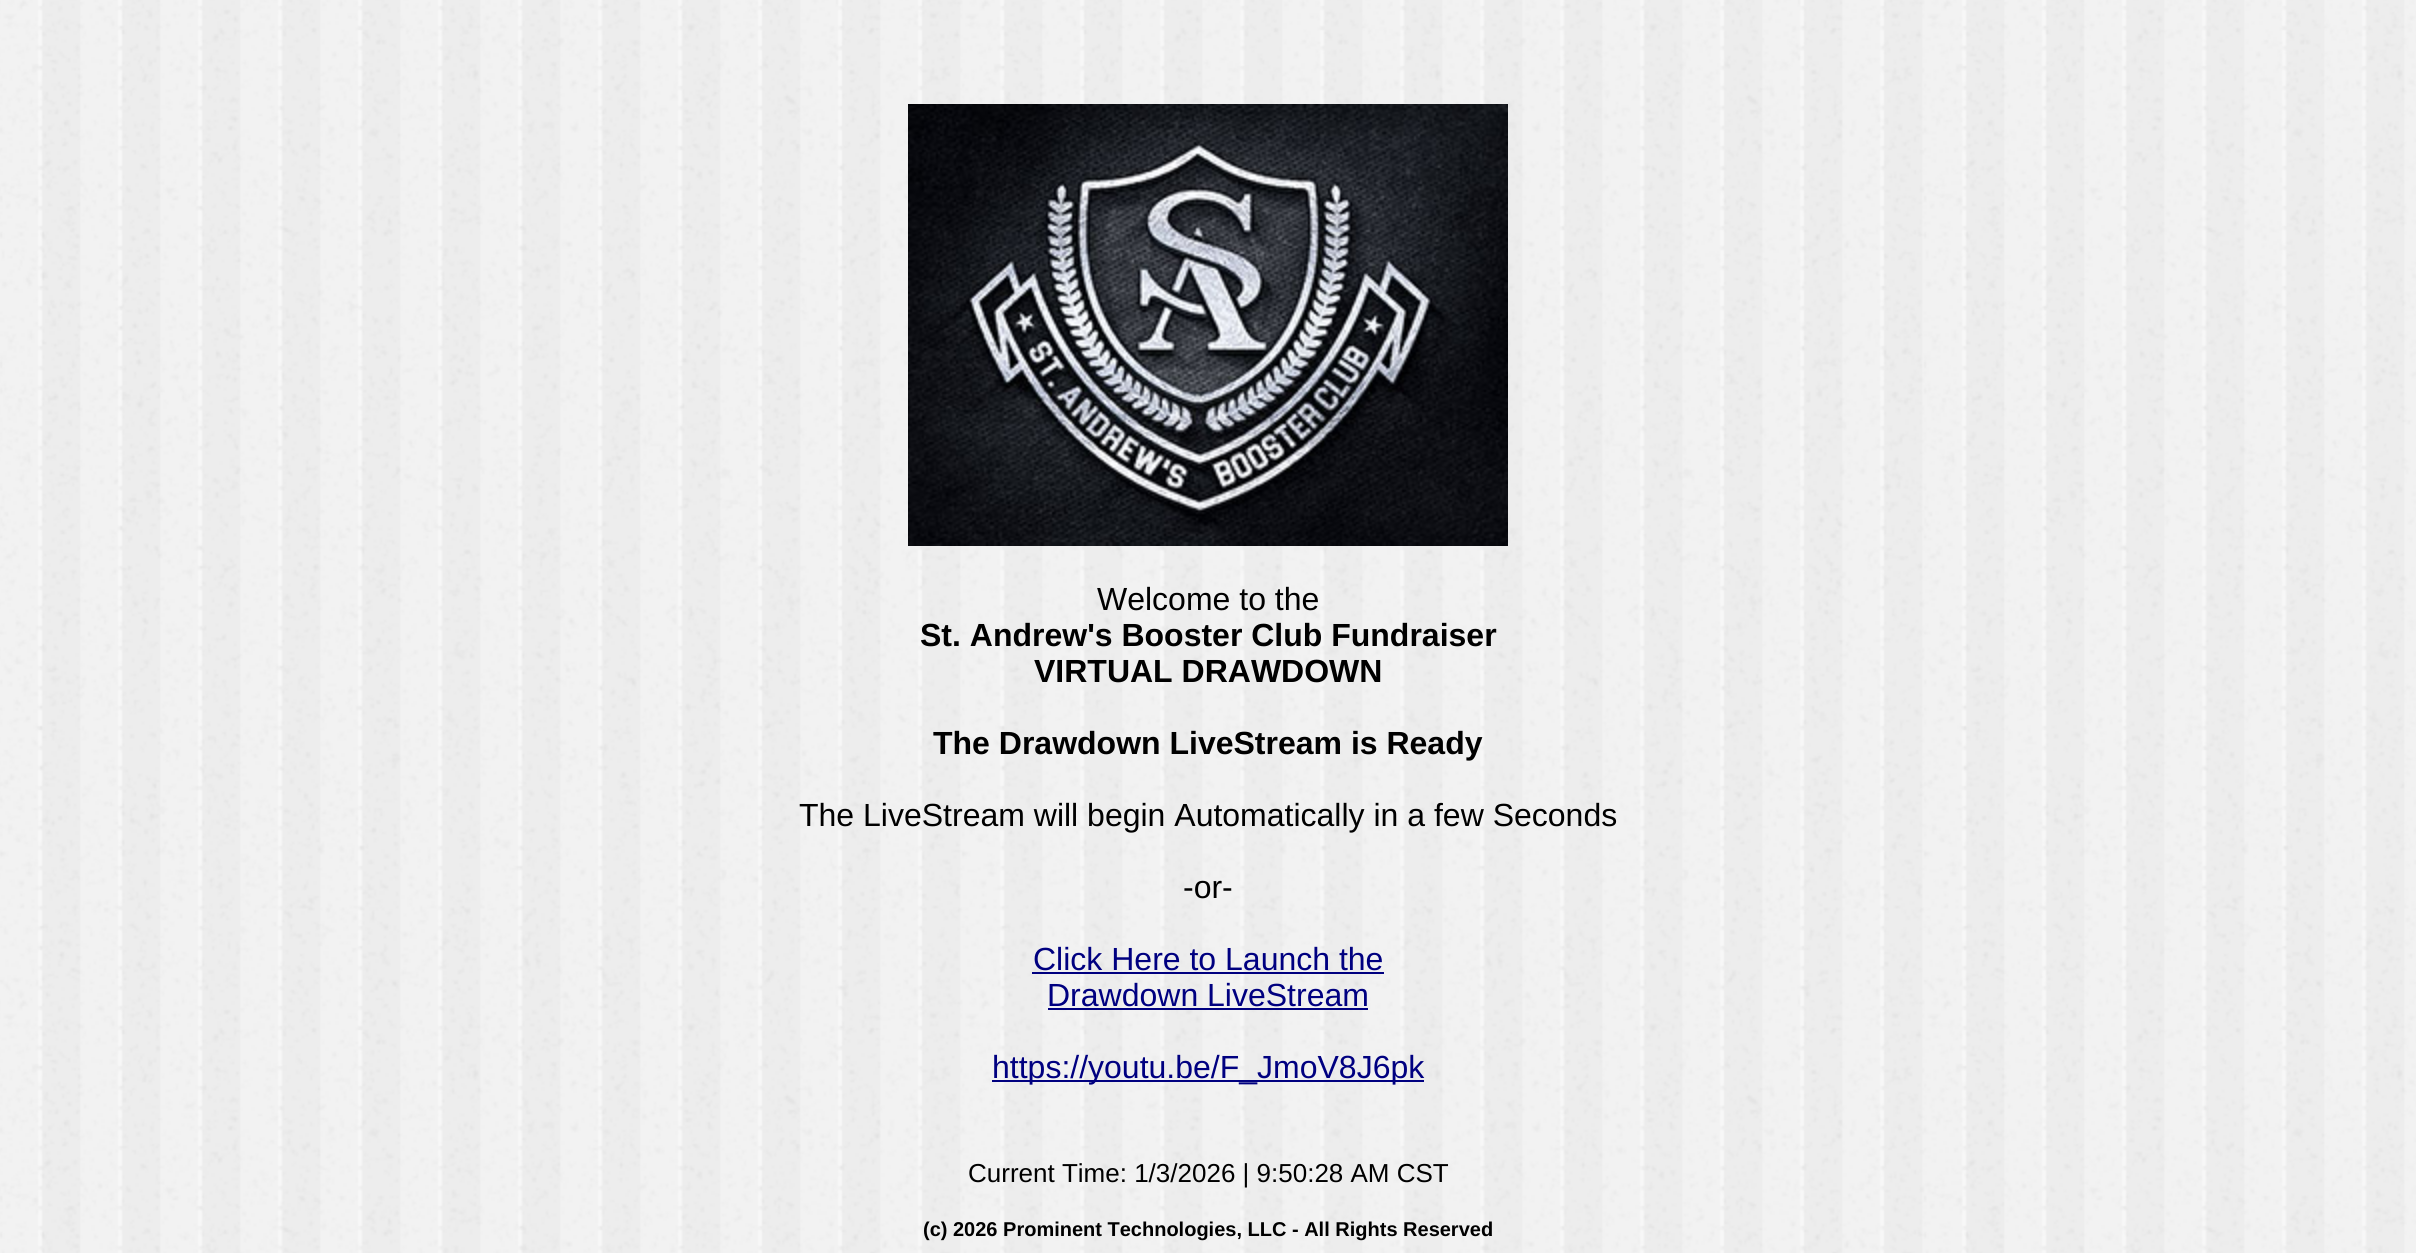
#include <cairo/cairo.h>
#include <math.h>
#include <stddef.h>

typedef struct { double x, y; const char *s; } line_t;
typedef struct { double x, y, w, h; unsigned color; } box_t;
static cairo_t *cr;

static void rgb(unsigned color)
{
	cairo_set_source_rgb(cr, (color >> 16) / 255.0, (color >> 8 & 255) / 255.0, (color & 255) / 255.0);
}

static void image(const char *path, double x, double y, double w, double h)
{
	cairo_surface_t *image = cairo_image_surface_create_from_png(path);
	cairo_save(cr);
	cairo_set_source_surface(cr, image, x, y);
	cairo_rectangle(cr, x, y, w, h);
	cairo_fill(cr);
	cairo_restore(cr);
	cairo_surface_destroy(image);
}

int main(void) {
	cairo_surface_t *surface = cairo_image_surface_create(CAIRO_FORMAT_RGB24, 2416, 1253);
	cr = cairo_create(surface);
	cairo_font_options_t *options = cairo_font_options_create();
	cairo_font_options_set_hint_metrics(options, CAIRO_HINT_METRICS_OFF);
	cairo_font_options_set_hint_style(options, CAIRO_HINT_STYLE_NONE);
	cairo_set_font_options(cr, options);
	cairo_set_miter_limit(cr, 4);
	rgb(0xffffff);
	cairo_paint(cr);
	image("img/1.png", 0, 0, 2416, 1253);
	image("img/2.png", 908, 104, 600, 442);
	{
		static const box_t items[] = {
			{1032, 972, 352, 2, 0x000080},
			{1048, 1008, 320, 2, 0x000080},
			{992, 1080, 432, 2, 0x000080},
		};
		for (size_t i = 0; i < sizeof items / sizeof *items; i++) {
			rgb(items[i].color);
			cairo_rectangle(cr, items[i].x, items[i].y, items[i].w, items[i].h);
			cairo_fill(cr);
		}
	}
	cairo_select_font_face(cr, "Liberation Sans", CAIRO_FONT_SLANT_NORMAL, CAIRO_FONT_WEIGHT_NORMAL);
	cairo_set_font_size(cr, 32);
	rgb(0x000000);
	cairo_move_to(cr, 1097, 610);
	cairo_show_text(cr, "Welcome to the");
	cairo_select_font_face(cr, "Liberation Sans", CAIRO_FONT_SLANT_NORMAL, CAIRO_FONT_WEIGHT_BOLD);
	{
		static const line_t items[] = {
			{920, 646, "St. Andrew's Booster Club Fundraiser"},
			{1034, 682, "VIRTUAL DRAWDOWN"},
			{933, 754, "The Drawdown LiveStream is Ready"},
		};
		for (size_t i = 0; i < sizeof items / sizeof *items; i++) {
			cairo_move_to(cr, items[i].x, items[i].y);
			cairo_show_text(cr, items[i].s);
		}
	}
	cairo_select_font_face(cr, "Liberation Sans", CAIRO_FONT_SLANT_NORMAL, CAIRO_FONT_WEIGHT_NORMAL);
	cairo_move_to(cr, 799, 826);
	cairo_show_text(cr, "The LiveStream will begin Automatically in a few Seconds");
	cairo_move_to(cr, 1183, 898);
	cairo_show_text(cr, "-or-");
	rgb(0x000080);
	{
		static const line_t items[] = {
			{1033, 970, "Click Here to Launch the"},
			{1047, 1006, "Drawdown LiveStream"},
			{992, 1078, "https://youtu.be/F_JmoV8J6pk"},
		};
		for (size_t i = 0; i < sizeof items / sizeof *items; i++) {
			cairo_move_to(cr, items[i].x, items[i].y);
			cairo_show_text(cr, items[i].s);
		}
	}
	cairo_set_font_size(cr, 26);
	rgb(0x000000);
	cairo_move_to(cr, 968, 1182);
	cairo_show_text(cr, "Current Time: 1/3/2026 | 9:50:28 AM CST");
	cairo_select_font_face(cr, "Liberation Sans", CAIRO_FONT_SLANT_NORMAL, CAIRO_FONT_WEIGHT_BOLD);
	cairo_set_font_size(cr, 20);
	cairo_move_to(cr, 923, 1236);
	cairo_show_text(cr, "(c) 2026 Prominent Technologies, LLC - All Rights Reserved");
	cairo_surface_write_to_png(surface, "page.png");
	cairo_font_options_destroy(options);
	cairo_destroy(cr);
	cairo_surface_destroy(surface);
	return 0;
}
